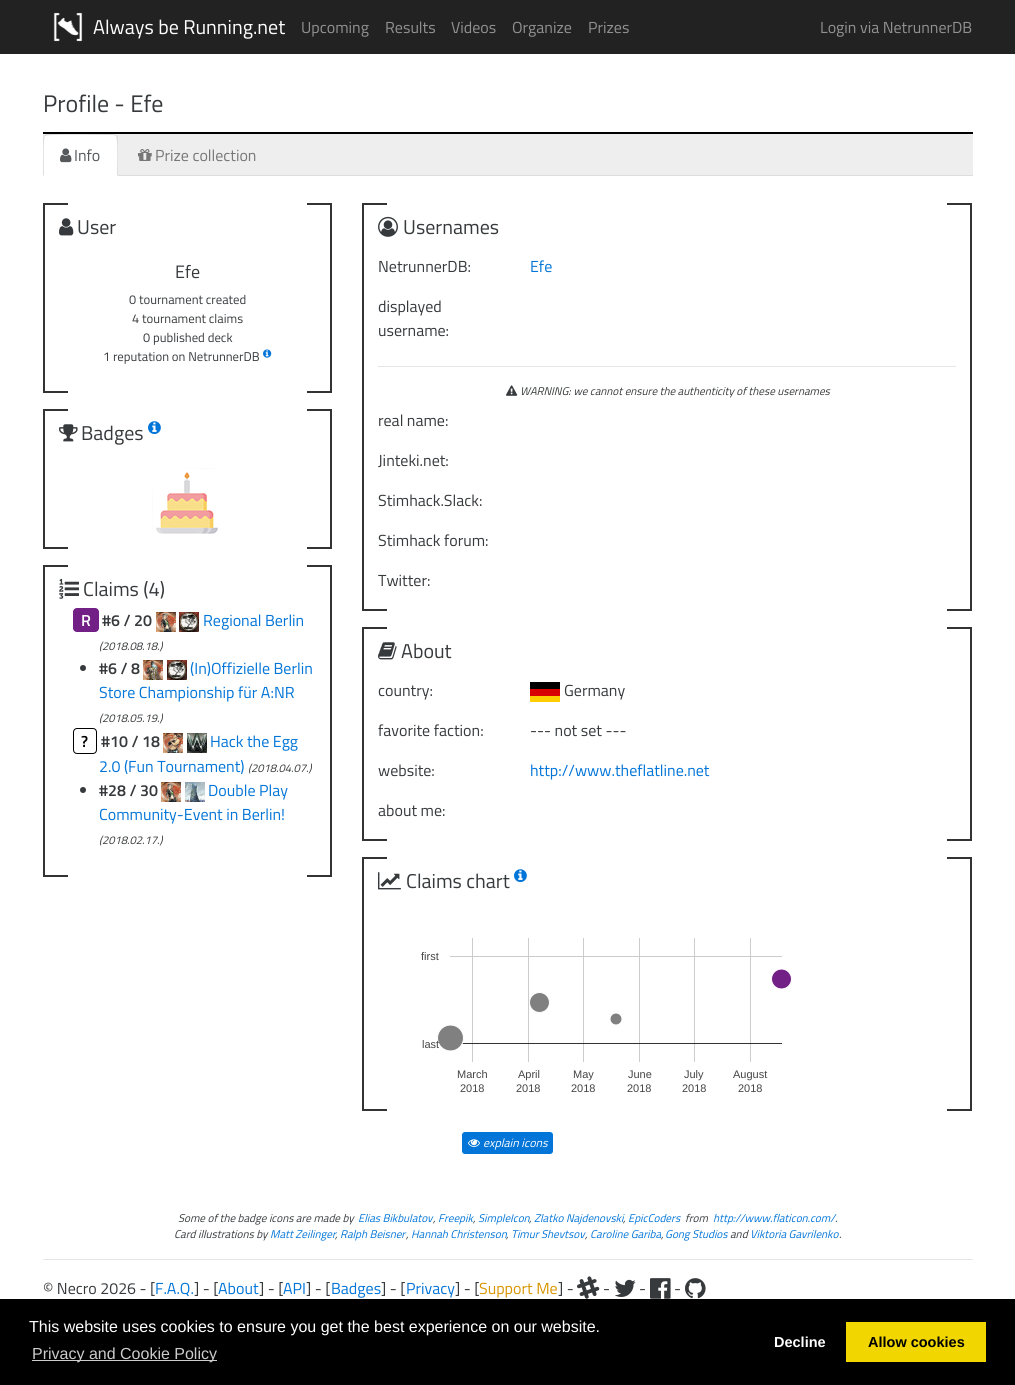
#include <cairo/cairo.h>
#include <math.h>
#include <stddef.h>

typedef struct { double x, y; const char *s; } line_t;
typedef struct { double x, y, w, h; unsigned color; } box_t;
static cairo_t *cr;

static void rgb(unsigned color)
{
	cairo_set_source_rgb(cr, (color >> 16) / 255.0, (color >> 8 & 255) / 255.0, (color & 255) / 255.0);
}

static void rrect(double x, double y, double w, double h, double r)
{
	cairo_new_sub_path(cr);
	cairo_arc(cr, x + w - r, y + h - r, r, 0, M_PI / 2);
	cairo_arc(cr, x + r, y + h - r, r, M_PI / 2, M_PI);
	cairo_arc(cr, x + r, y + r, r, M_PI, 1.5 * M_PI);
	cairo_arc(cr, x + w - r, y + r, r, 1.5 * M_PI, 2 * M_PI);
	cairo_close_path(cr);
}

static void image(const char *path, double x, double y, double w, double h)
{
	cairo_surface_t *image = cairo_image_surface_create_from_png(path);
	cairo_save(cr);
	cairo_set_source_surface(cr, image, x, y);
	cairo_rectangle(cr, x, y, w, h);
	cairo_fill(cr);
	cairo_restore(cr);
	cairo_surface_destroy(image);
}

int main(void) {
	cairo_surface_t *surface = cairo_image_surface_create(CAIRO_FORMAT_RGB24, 1015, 1385);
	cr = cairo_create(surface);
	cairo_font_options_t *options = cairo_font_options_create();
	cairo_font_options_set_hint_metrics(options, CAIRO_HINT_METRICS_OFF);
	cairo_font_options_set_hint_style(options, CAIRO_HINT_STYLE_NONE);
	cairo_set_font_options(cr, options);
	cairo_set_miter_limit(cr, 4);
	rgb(0xffffff);
	cairo_paint(cr);
	rgb(0x222222);
	cairo_rectangle(cr, 0, 0, 1015, 54);
	cairo_fill(cr);
	image("img/1.png", 53, 12, 30, 30);
	{
		static const box_t items[] = {
			{43, 132, 930, 2, 0x000000},
			{43, 134, 930, 41, 0xeeeeee},
			{118, 175, 855, 1, 0xdddddd},
		};
		for (size_t i = 0; i < sizeof items / sizeof *items; i++) {
			rgb(items[i].color);
			cairo_rectangle(cr, items[i].x, items[i].y, items[i].w, items[i].h);
			cairo_fill(cr);
		}
	}
	rgb(0xffffff);
	cairo_new_path(cr);
	cairo_move_to(cr, 47, 134);
	cairo_line_to(cr, 114, 134);
	cairo_curve_to(cr, 116, 134, 118, 136, 118, 138);
	cairo_line_to(cr, 118, 176);
	cairo_line_to(cr, 43, 176);
	cairo_line_to(cr, 43, 138);
	cairo_curve_to(cr, 43, 136, 45, 134, 47, 134);
	cairo_close_path(cr);
	cairo_fill(cr);
	rgb(0xdddddd);
	cairo_new_path(cr);
	cairo_move_to(cr, 47, 134);
	cairo_line_to(cr, 44, 135);
	cairo_line_to(cr, 45, 136);
	cairo_curve_to(cr, 47, 134, 96, 135, 103, 135);
	cairo_line_to(cr, 114, 135);
	cairo_line_to(cr, 116, 136);
	cairo_line_to(cr, 117, 135);
	cairo_line_to(cr, 114, 134);
	cairo_close_path(cr);
	cairo_fill(cr);
	cairo_new_path(cr);
	cairo_move_to(cr, 118, 176);
	cairo_line_to(cr, 118, 138);
	cairo_curve_to(cr, 118, 137, 118, 136, 117, 135);
	cairo_line_to(cr, 116, 136);
	cairo_curve_to(cr, 118, 138, 117, 170, 117, 175);
	cairo_close_path(cr);
	cairo_fill(cr);
	cairo_new_path(cr);
	cairo_move_to(cr, 43, 176);
	cairo_line_to(cr, 44, 175);
	cairo_curve_to(cr, 44, 170, 43, 138, 45, 136);
	cairo_line_to(cr, 44, 135);
	cairo_line_to(cr, 43, 138);
	cairo_close_path(cr);
	cairo_fill(cr);
	image("img/2.png", 60, 148, 12, 15);
	image("img/3.png", 138, 149, 14, 12);
	{
		static const box_t items[] = {
			{43, 203, 25, 2, 0x333333},
			{43, 391, 25, 2, 0x333333},
			{43, 203, 2, 190, 0x333333},
		};
		for (size_t i = 0; i < sizeof items / sizeof *items; i++) {
			rgb(items[i].color);
			cairo_rectangle(cr, items[i].x, items[i].y, items[i].w, items[i].h);
			cairo_fill(cr);
		}
	}
	image("img/4.png", 59, 218, 15, 18);
	{
		static const box_t items[] = {
			{307, 203, 25, 2, 0x333333},
			{330, 203, 2, 190, 0x333333},
			{307, 391, 25, 2, 0x333333},
		};
		for (size_t i = 0; i < sizeof items / sizeof *items; i++) {
			rgb(items[i].color);
			cairo_rectangle(cr, items[i].x, items[i].y, items[i].w, items[i].h);
			cairo_fill(cr);
		}
	}
	image("img/5.png", 263, 349, 9, 9);
	{
		static const box_t items[] = {
			{43, 409, 25, 2, 0x333333},
			{43, 547, 25, 2, 0x333333},
			{43, 409, 2, 140, 0x333333},
		};
		for (size_t i = 0; i < sizeof items / sizeof *items; i++) {
			rgb(items[i].color);
			cairo_rectangle(cr, items[i].x, items[i].y, items[i].w, items[i].h);
			cairo_fill(cr);
		}
	}
	image("img/6.png", 59, 424, 19, 18);
	image("img/7.png", 148, 421, 13, 14);
	{
		static const box_t items[] = {
			{307, 409, 25, 2, 0x333333},
			{330, 409, 2, 140, 0x333333},
			{307, 547, 25, 2, 0x333333},
		};
		for (size_t i = 0; i < sizeof items / sizeof *items; i++) {
			rgb(items[i].color);
			cairo_rectangle(cr, items[i].x, items[i].y, items[i].w, items[i].h);
			cairo_fill(cr);
		}
	}
	image("img/8.png", 152, 468, 66, 66);
	{
		static const box_t items[] = {
			{43, 565, 25, 2, 0x333333},
			{43, 875, 25, 2, 0x333333},
			{43, 565, 2, 312, 0x333333},
		};
		for (size_t i = 0; i < sizeof items / sizeof *items; i++) {
			rgb(items[i].color);
			cairo_rectangle(cr, items[i].x, items[i].y, items[i].w, items[i].h);
			cairo_fill(cr);
		}
	}
	image("img/9.png", 59, 578, 20, 21);
	{
		static const box_t items[] = {
			{307, 565, 25, 2, 0x333333},
			{330, 565, 2, 312, 0x333333},
			{307, 875, 25, 2, 0x333333},
		};
		for (size_t i = 0; i < sizeof items / sizeof *items; i++) {
			rgb(items[i].color);
			cairo_rectangle(cr, items[i].x, items[i].y, items[i].w, items[i].h);
			cairo_fill(cr);
		}
	}
	rgb(0x722086);
	rrect(73, 608, 26, 24, 4);
	cairo_fill(cr);
	image("img/10.png", 156, 612, 20, 20);
	image("img/11.png", 179, 612, 20, 20);
	rgb(0x373a3c);
	cairo_arc(cr, 83, 668, 3, 0, 2 * M_PI);
	cairo_fill(cr);
	image("img/12.png", 143, 660, 20, 20);
	image("img/11.png", 167, 660, 20, 20);
	rrect(73.5, 728.5, 23, 25, 3.5);
	rgb(0x000000);
	cairo_set_line_width(cr, 1);
	cairo_stroke(cr);
	image("img/13.png", 163, 733, 20, 20);
	image("img/14.png", 187, 733, 20, 20);
	rgb(0x373a3c);
	cairo_arc(cr, 83, 790, 3, 0, 2 * M_PI);
	cairo_fill(cr);
	image("img/10.png", 161, 782, 20, 20);
	image("img/15.png", 185, 782, 20, 20);
	{
		static const box_t items[] = {
			{362, 203, 25, 2, 0x333333},
			{362, 609, 25, 2, 0x333333},
			{362, 203, 2, 408, 0x333333},
		};
		for (size_t i = 0; i < sizeof items / sizeof *items; i++) {
			rgb(items[i].color);
			cairo_rectangle(cr, items[i].x, items[i].y, items[i].w, items[i].h);
			cairo_fill(cr);
		}
	}
	image("img/16.png", 378, 216, 20, 21);
	{
		static const box_t items[] = {
			{947, 203, 25, 2, 0x333333},
			{970, 203, 2, 408, 0x333333},
			{947, 609, 25, 2, 0x333333},
			{378, 366, 578, 1, 0xe6e6e6},
		};
		for (size_t i = 0; i < sizeof items / sizeof *items; i++) {
			rgb(items[i].color);
			cairo_rectangle(cr, items[i].x, items[i].y, items[i].w, items[i].h);
			cairo_fill(cr);
		}
	}
	image("img/17.png", 506, 385, 12, 11);
	{
		static const box_t items[] = {
			{362, 627, 25, 2, 0x333333},
			{362, 839, 25, 2, 0x333333},
			{362, 627, 2, 214, 0x333333},
		};
		for (size_t i = 0; i < sizeof items / sizeof *items; i++) {
			rgb(items[i].color);
			cairo_rectangle(cr, items[i].x, items[i].y, items[i].w, items[i].h);
			cairo_fill(cr);
		}
	}
	image("img/18.png", 378, 642, 19, 18);
	{
		static const box_t items[] = {
			{947, 627, 25, 2, 0x333333},
			{970, 627, 2, 214, 0x333333},
			{947, 839, 25, 2, 0x333333},
		};
		for (size_t i = 0; i < sizeof items / sizeof *items; i++) {
			rgb(items[i].color);
			cairo_rectangle(cr, items[i].x, items[i].y, items[i].w, items[i].h);
			cairo_fill(cr);
		}
	}
	image("img/19.png", 530, 682, 30, 20);
	{
		static const box_t items[] = {
			{362, 857, 25, 2, 0x333333},
			{362, 1109, 25, 2, 0x333333},
			{362, 857, 2, 254, 0x333333},
		};
		for (size_t i = 0; i < sizeof items / sizeof *items; i++) {
			rgb(items[i].color);
			cairo_rectangle(cr, items[i].x, items[i].y, items[i].w, items[i].h);
			cairo_fill(cr);
		}
	}
	image("img/20.png", 378, 872, 23, 18);
	image("img/7.png", 514, 869, 13, 14);
	{
		static const box_t items[] = {
			{947, 857, 25, 2, 0x333333},
			{970, 857, 2, 254, 0x333333},
			{947, 1109, 25, 2, 0x333333},
			{472, 938, 1, 124, 0xcccccc},
			{528, 938, 1, 124, 0xcccccc},
			{583, 938, 1, 124, 0xcccccc},
			{639, 938, 1, 124, 0xcccccc},
			{694, 938, 1, 124, 0xcccccc},
			{750, 938, 1, 124, 0xcccccc},
			{450, 956, 332, 1, 0xcccccc},
			{462, 1043, 320, 1, 0x333333},
		};
		for (size_t i = 0; i < sizeof items / sizeof *items; i++) {
			rgb(items[i].color);
			cairo_rectangle(cr, items[i].x, items[i].y, items[i].w, items[i].h);
			cairo_fill(cr);
		}
	}
	rgb(0x808080);
	cairo_arc(cr, 450.5, 1038, 13, 0, 2 * M_PI);
	cairo_fill_preserve(cr);
	rgb(0xffffff);
	cairo_stroke(cr);
	rgb(0x808080);
	cairo_arc(cr, 539.5, 1002.5, 10, 0, 2 * M_PI);
	cairo_fill_preserve(cr);
	rgb(0xffffff);
	cairo_stroke(cr);
	rgb(0x808080);
	cairo_arc(cr, 616, 1019, 6, 0, 2 * M_PI);
	cairo_fill_preserve(cr);
	rgb(0xffffff);
	cairo_stroke(cr);
	rgb(0x722086);
	cairo_arc(cr, 781.5, 979, 10, 0, 2 * M_PI);
	cairo_fill_preserve(cr);
	rgb(0xffffff);
	cairo_stroke(cr);
	rgb(0x0275d8);
	rrect(462.5, 1132.5, 90, 21, 2.5);
	cairo_fill_preserve(cr);
	cairo_stroke(cr);
	image("img/21.png", 468, 1139, 12, 8);
	rgb(0xe6e6e6);
	cairo_rectangle(cr, 43, 1259, 930, 1);
	cairo_fill(cr);
	image("img/22.png", 577, 1276, 23, 23);
	image("img/23.png", 614, 1279, 22, 18);
	image("img/24.png", 650, 1278, 21, 21);
	image("img/25.png", 685, 1278, 21, 21);
	{
		static const box_t items[] = {
			{0, 1299, 1015, 86, 0x000000},
			{32, 1360, 185, 1, 0xcccccc},
			{846, 1322, 140, 40, 0xf1d600},
		};
		for (size_t i = 0; i < sizeof items / sizeof *items; i++) {
			rgb(items[i].color);
			cairo_rectangle(cr, items[i].x, items[i].y, items[i].w, items[i].h);
			cairo_fill(cr);
		}
	}
	cairo_select_font_face(cr, "Titillium Web", CAIRO_FONT_SLANT_NORMAL, CAIRO_FONT_WEIGHT_NORMAL);
	cairo_set_font_size(cr, 20);
	rgb(0xffffff);
	cairo_move_to(cr, 93, 34);
	cairo_show_text(cr, "Always be Running.net");
	cairo_set_font_size(cr, 16);
	rgb(0x919191);
	{
		static const line_t items[] = {
			{301, 33, "Upcoming"},
			{385, 33, "Results"},
			{451, 33, "Videos"},
			{512, 33, "Organize"},
			{588, 33, "Prizes"},
			{820, 33, "Login via NetrunnerDB"},
		};
		for (size_t i = 0; i < sizeof items / sizeof *items; i++) {
			cairo_move_to(cr, items[i].x, items[i].y);
			cairo_show_text(cr, items[i].s);
		}
	}
	cairo_set_font_size(cr, 24);
	rgb(0x373a3c);
	cairo_move_to(cr, 43, 112);
	cairo_show_text(cr, "Profile - Efe");
	cairo_set_font_size(cr, 16);
	rgb(0x55595c);
	cairo_move_to(cr, 74, 161);
	cairo_show_text(cr, "Info");
	rgb(0x777777);
	cairo_move_to(cr, 155, 161);
	cairo_show_text(cr, "Prize collection");
	cairo_set_font_size(cr, 20);
	rgb(0x373a3c);
	cairo_move_to(cr, 77, 234);
	cairo_show_text(cr, "User");
	cairo_set_font_size(cr, 18);
	cairo_move_to(cr, 175, 278);
	cairo_show_text(cr, "Efe");
	cairo_set_font_size(cr, 12.75);
	{
		static const line_t items[] = {
			{129, 304, "0 tournament created"},
			{132, 323, "4 tournament claims"},
			{143, 342, "0 published deck"},
			{103, 361, "1 reputation on NetrunnerDB"},
		};
		for (size_t i = 0; i < sizeof items / sizeof *items; i++) {
			cairo_move_to(cr, items[i].x, items[i].y);
			cairo_show_text(cr, items[i].s);
		}
	}
	cairo_set_font_size(cr, 20);
	cairo_move_to(cr, 81, 440);
	cairo_show_text(cr, "Badges");
	cairo_move_to(cr, 83, 596);
	cairo_show_text(cr, "Claims (4)");
	cairo_select_font_face(cr, "Titillium Web SemiBold", CAIRO_FONT_SLANT_NORMAL, CAIRO_FONT_WEIGHT_NORMAL);
	cairo_set_font_size(cr, 16);
	rgb(0xffffff);
	cairo_move_to(cr, 81, 626);
	cairo_show_text(cr, "R");
	rgb(0x373a3c);
	cairo_move_to(cr, 102, 626);
	cairo_show_text(cr, "#6 / 20");
	cairo_select_font_face(cr, "Titillium Web", CAIRO_FONT_SLANT_NORMAL, CAIRO_FONT_WEIGHT_NORMAL);
	rgb(0x0275d8);
	cairo_move_to(cr, 203, 626);
	cairo_show_text(cr, "Regional Berlin");
	cairo_select_font_face(cr, "Titillium Web", CAIRO_FONT_SLANT_ITALIC, CAIRO_FONT_WEIGHT_NORMAL);
	cairo_set_font_size(cr, 11.2);
	rgb(0x373a3c);
	cairo_move_to(cr, 99, 650);
	cairo_show_text(cr, "(2018.08.18.)");
	cairo_select_font_face(cr, "Titillium Web SemiBold", CAIRO_FONT_SLANT_NORMAL, CAIRO_FONT_WEIGHT_NORMAL);
	cairo_set_font_size(cr, 16);
	cairo_move_to(cr, 99, 674);
	cairo_show_text(cr, "#6 / 8");
	cairo_select_font_face(cr, "Titillium Web", CAIRO_FONT_SLANT_NORMAL, CAIRO_FONT_WEIGHT_NORMAL);
	rgb(0x0275d8);
	cairo_move_to(cr, 190, 674);
	cairo_show_text(cr, "(In)Offizielle Berlin");
	cairo_move_to(cr, 99, 698);
	cairo_show_text(cr, "Store Championship für A:NR");
	cairo_select_font_face(cr, "Titillium Web", CAIRO_FONT_SLANT_ITALIC, CAIRO_FONT_WEIGHT_NORMAL);
	cairo_set_font_size(cr, 11.2);
	rgb(0x373a3c);
	cairo_move_to(cr, 99, 722);
	cairo_show_text(cr, "(2018.05.19.)");
	cairo_select_font_face(cr, "Titillium Web SemiBold", CAIRO_FONT_SLANT_NORMAL, CAIRO_FONT_WEIGHT_NORMAL);
	cairo_set_font_size(cr, 16);
	rgb(0x000000);
	cairo_move_to(cr, 81, 747);
	cairo_show_text(cr, "?");
	rgb(0x373a3c);
	cairo_move_to(cr, 101, 747);
	cairo_show_text(cr, "#10 / 18");
	cairo_select_font_face(cr, "Titillium Web", CAIRO_FONT_SLANT_NORMAL, CAIRO_FONT_WEIGHT_NORMAL);
	rgb(0x0275d8);
	cairo_move_to(cr, 210, 747);
	cairo_show_text(cr, "Hack the Egg");
	cairo_move_to(cr, 99, 772);
	cairo_show_text(cr, "2.0 (Fun Tournament)");
	cairo_select_font_face(cr, "Titillium Web", CAIRO_FONT_SLANT_ITALIC, CAIRO_FONT_WEIGHT_NORMAL);
	cairo_set_font_size(cr, 11.2);
	rgb(0x373a3c);
	cairo_move_to(cr, 248, 772);
	cairo_show_text(cr, "(2018.04.07.)");
	cairo_select_font_face(cr, "Titillium Web SemiBold", CAIRO_FONT_SLANT_NORMAL, CAIRO_FONT_WEIGHT_NORMAL);
	cairo_set_font_size(cr, 16);
	cairo_move_to(cr, 99, 796);
	cairo_show_text(cr, "#28 / 30");
	cairo_select_font_face(cr, "Titillium Web", CAIRO_FONT_SLANT_NORMAL, CAIRO_FONT_WEIGHT_NORMAL);
	rgb(0x0275d8);
	cairo_move_to(cr, 208, 796);
	cairo_show_text(cr, "Double Play");
	cairo_move_to(cr, 99, 820);
	cairo_show_text(cr, "Community-Event in Berlin!");
	cairo_select_font_face(cr, "Titillium Web", CAIRO_FONT_SLANT_ITALIC, CAIRO_FONT_WEIGHT_NORMAL);
	cairo_set_font_size(cr, 11.2);
	rgb(0x373a3c);
	cairo_move_to(cr, 99, 844);
	cairo_show_text(cr, "(2018.02.17.)");
	cairo_select_font_face(cr, "Titillium Web", CAIRO_FONT_SLANT_NORMAL, CAIRO_FONT_WEIGHT_NORMAL);
	cairo_set_font_size(cr, 20);
	cairo_move_to(cr, 403, 234);
	cairo_show_text(cr, "Usernames");
	cairo_set_font_size(cr, 16);
	cairo_move_to(cr, 378, 272);
	cairo_show_text(cr, "NetrunnerDB:");
	rgb(0x0275d8);
	cairo_move_to(cr, 530, 272);
	cairo_show_text(cr, "Efe");
	rgb(0x373a3c);
	cairo_move_to(cr, 378, 312);
	cairo_show_text(cr, "displayed");
	cairo_move_to(cr, 378, 336);
	cairo_show_text(cr, "username:");
	cairo_select_font_face(cr, "Titillium Web", CAIRO_FONT_SLANT_ITALIC, CAIRO_FONT_WEIGHT_NORMAL);
	cairo_set_font_size(cr, 11.2);
	cairo_move_to(cr, 520, 395);
	cairo_show_text(cr, "WARNING: we cannot ensure the authenticity of these usernames");
	cairo_select_font_face(cr, "Titillium Web", CAIRO_FONT_SLANT_NORMAL, CAIRO_FONT_WEIGHT_NORMAL);
	cairo_set_font_size(cr, 16);
	{
		static const line_t items[] = {
			{378, 426, "real name:"},
			{378, 466, "Jinteki.net:"},
			{378, 506, "Stimhack.Slack:"},
			{378, 546, "Stimhack forum:"},
			{378, 586, "Twitter:"},
		};
		for (size_t i = 0; i < sizeof items / sizeof *items; i++) {
			cairo_move_to(cr, items[i].x, items[i].y);
			cairo_show_text(cr, items[i].s);
		}
	}
	cairo_set_font_size(cr, 20);
	cairo_move_to(cr, 401, 658);
	cairo_show_text(cr, "About");
	cairo_set_font_size(cr, 16);
	{
		static const line_t items[] = {
			{378, 696, "country:"},
			{564, 696, "Germany"},
			{378, 736, "favorite faction:"},
			{530, 736, "--- not set ---"},
			{378, 776, "website:"},
		};
		for (size_t i = 0; i < sizeof items / sizeof *items; i++) {
			cairo_move_to(cr, items[i].x, items[i].y);
			cairo_show_text(cr, items[i].s);
		}
	}
	rgb(0x0275d8);
	cairo_move_to(cr, 530, 776);
	cairo_show_text(cr, "http://www.theflatline.net");
	rgb(0x373a3c);
	cairo_move_to(cr, 378, 816);
	cairo_show_text(cr, "about me:");
	cairo_set_font_size(cr, 20);
	cairo_move_to(cr, 406, 888);
	cairo_show_text(cr, "Claims chart");
	cairo_select_font_face(cr, "Liberation Sans", CAIRO_FONT_SLANT_NORMAL, CAIRO_FONT_WEIGHT_NORMAL);
	cairo_set_font_size(cr, 11);
	rgb(0x444444);
	{
		static const line_t items[] = {
			{421, 960, "first"},
			{422, 1048, "last"},
			{457, 1078, "March"},
			{518, 1078, "April"},
			{573, 1078, "May"},
			{628, 1078, "June"},
			{684, 1078, "July"},
			{733, 1078, "August"},
			{460, 1092, "2018"},
			{516, 1092, "2018"},
			{571, 1092, "2018"},
			{627, 1092, "2018"},
			{682, 1092, "2018"},
			{738, 1092, "2018"},
		};
		for (size_t i = 0; i < sizeof items / sizeof *items; i++) {
			cairo_move_to(cr, items[i].x, items[i].y);
			cairo_show_text(cr, items[i].s);
		}
	}
	cairo_select_font_face(cr, "Titillium Web", CAIRO_FONT_SLANT_ITALIC, CAIRO_FONT_WEIGHT_NORMAL);
	cairo_set_font_size(cr, 12);
	rgb(0xffffff);
	cairo_move_to(cr, 483, 1147);
	cairo_show_text(cr, "explain icons");
	cairo_set_font_size(cr, 11.2);
	rgb(0x373a3c);
	cairo_move_to(cr, 178, 1222);
	cairo_show_text(cr, "Some of the badge icons are made by");
	rgb(0x0275d8);
	{
		static const line_t items[] = {
			{358, 1222, "Elias Bikbulatov"},
			{438, 1222, "Freepik"},
			{478, 1222, "SimpleIcon"},
			{534, 1222, "Zlatko Najdenovski"},
			{628, 1222, "EpicCoders"},
		};
		for (size_t i = 0; i < sizeof items / sizeof *items; i++) {
			cairo_move_to(cr, items[i].x, items[i].y);
			cairo_show_text(cr, items[i].s);
		}
	}
	rgb(0x373a3c);
	cairo_move_to(cr, 685, 1222);
	cairo_show_text(cr, "from");
	rgb(0x0275d8);
	cairo_move_to(cr, 713, 1222);
	cairo_show_text(cr, "http://www.flaticon.com/");
	rgb(0x373a3c);
	{
		static const line_t items[] = {
			{433, 1222, ","},
			{473, 1222, ","},
			{529, 1222, ","},
			{623, 1222, ","},
			{835, 1222, "."},
			{174, 1238, "Card illustrations by"},
		};
		for (size_t i = 0; i < sizeof items / sizeof *items; i++) {
			cairo_move_to(cr, items[i].x, items[i].y);
			cairo_show_text(cr, items[i].s);
		}
	}
	rgb(0x0275d8);
	{
		static const line_t items[] = {
			{270, 1238, "Matt Zeilinger"},
			{340, 1238, "Ralph Beisner"},
			{411, 1238, "Hannah Christenson"},
			{511, 1238, "Timur Shevtsov"},
			{590, 1238, "Caroline Gariba"},
			{665, 1238, "Gong Studios"},
		};
		for (size_t i = 0; i < sizeof items / sizeof *items; i++) {
			cairo_move_to(cr, items[i].x, items[i].y);
			cairo_show_text(cr, items[i].s);
		}
	}
	rgb(0x373a3c);
	cairo_move_to(cr, 730, 1238);
	cairo_show_text(cr, "and");
	rgb(0x0275d8);
	cairo_move_to(cr, 750, 1238);
	cairo_show_text(cr, "Viktoria Gavrilenko");
	rgb(0x373a3c);
	{
		static const line_t items[] = {
			{335, 1238, ","},
			{406, 1238, ","},
			{506, 1238, ","},
			{585, 1238, ","},
			{661, 1238, ","},
			{839, 1238, "."},
		};
		for (size_t i = 0; i < sizeof items / sizeof *items; i++) {
			cairo_move_to(cr, items[i].x, items[i].y);
			cairo_show_text(cr, items[i].s);
		}
	}
	cairo_select_font_face(cr, "Titillium Web", CAIRO_FONT_SLANT_NORMAL, CAIRO_FONT_WEIGHT_NORMAL);
	cairo_set_font_size(cr, 16);
	cairo_move_to(cr, 43, 1294);
	cairo_show_text(cr, "© Necro 2026 - [");
	rgb(0x0275d8);
	cairo_move_to(cr, 155, 1294);
	cairo_show_text(cr, "F.A.Q.");
	rgb(0x373a3c);
	cairo_move_to(cr, 194, 1294);
	cairo_show_text(cr, "] - [");
	rgb(0x0275d8);
	cairo_move_to(cr, 218, 1294);
	cairo_show_text(cr, "About");
	rgb(0x373a3c);
	cairo_move_to(cr, 259, 1294);
	cairo_show_text(cr, "] - [");
	rgb(0x0275d8);
	cairo_move_to(cr, 283, 1294);
	cairo_show_text(cr, "API");
	rgb(0x373a3c);
	cairo_move_to(cr, 306, 1294);
	cairo_show_text(cr, "] - [");
	rgb(0x0275d8);
	cairo_move_to(cr, 331, 1294);
	cairo_show_text(cr, "Badges");
	rgb(0x373a3c);
	cairo_move_to(cr, 381, 1294);
	cairo_show_text(cr, "] - [");
	rgb(0x0275d8);
	cairo_move_to(cr, 406, 1294);
	cairo_show_text(cr, "Privacy");
	rgb(0x373a3c);
	cairo_move_to(cr, 455, 1294);
	cairo_show_text(cr, "] - [");
	rgb(0xd89602);
	cairo_move_to(cr, 479, 1294);
	cairo_show_text(cr, "Support Me");
	rgb(0x373a3c);
	{
		static const line_t items[] = {
			{558, 1294, "] -"},
			{603, 1294, "-"},
			{639, 1294, "-"},
			{674, 1294, "-"},
		};
		for (size_t i = 0; i < sizeof items / sizeof *items; i++) {
			cairo_move_to(cr, items[i].x, items[i].y);
			cairo_show_text(cr, items[i].s);
		}
	}
	cairo_select_font_face(cr, "Liberation Sans", CAIRO_FONT_SLANT_NORMAL, CAIRO_FONT_WEIGHT_NORMAL);
	rgb(0xffffff);
	cairo_move_to(cr, 29, 1332);
	cairo_show_text(cr, "This website uses cookies to ensure you get the best experience on our website.");
	rgb(0xcccccc);
	cairo_move_to(cr, 32, 1359);
	cairo_show_text(cr, "Privacy and Cookie Policy");
	cairo_select_font_face(cr, "Liberation Sans", CAIRO_FONT_SLANT_NORMAL, CAIRO_FONT_WEIGHT_BOLD);
	cairo_set_font_size(cr, 14.5);
	rgb(0xffffff);
	cairo_move_to(cr, 774, 1347);
	cairo_show_text(cr, "Decline");
	rgb(0x000000);
	cairo_move_to(cr, 868, 1347);
	cairo_show_text(cr, "Allow cookies");
	cairo_surface_write_to_png(surface, "page.png");
	cairo_font_options_destroy(options);
	cairo_destroy(cr);
	cairo_surface_destroy(surface);
	return 0;
}
